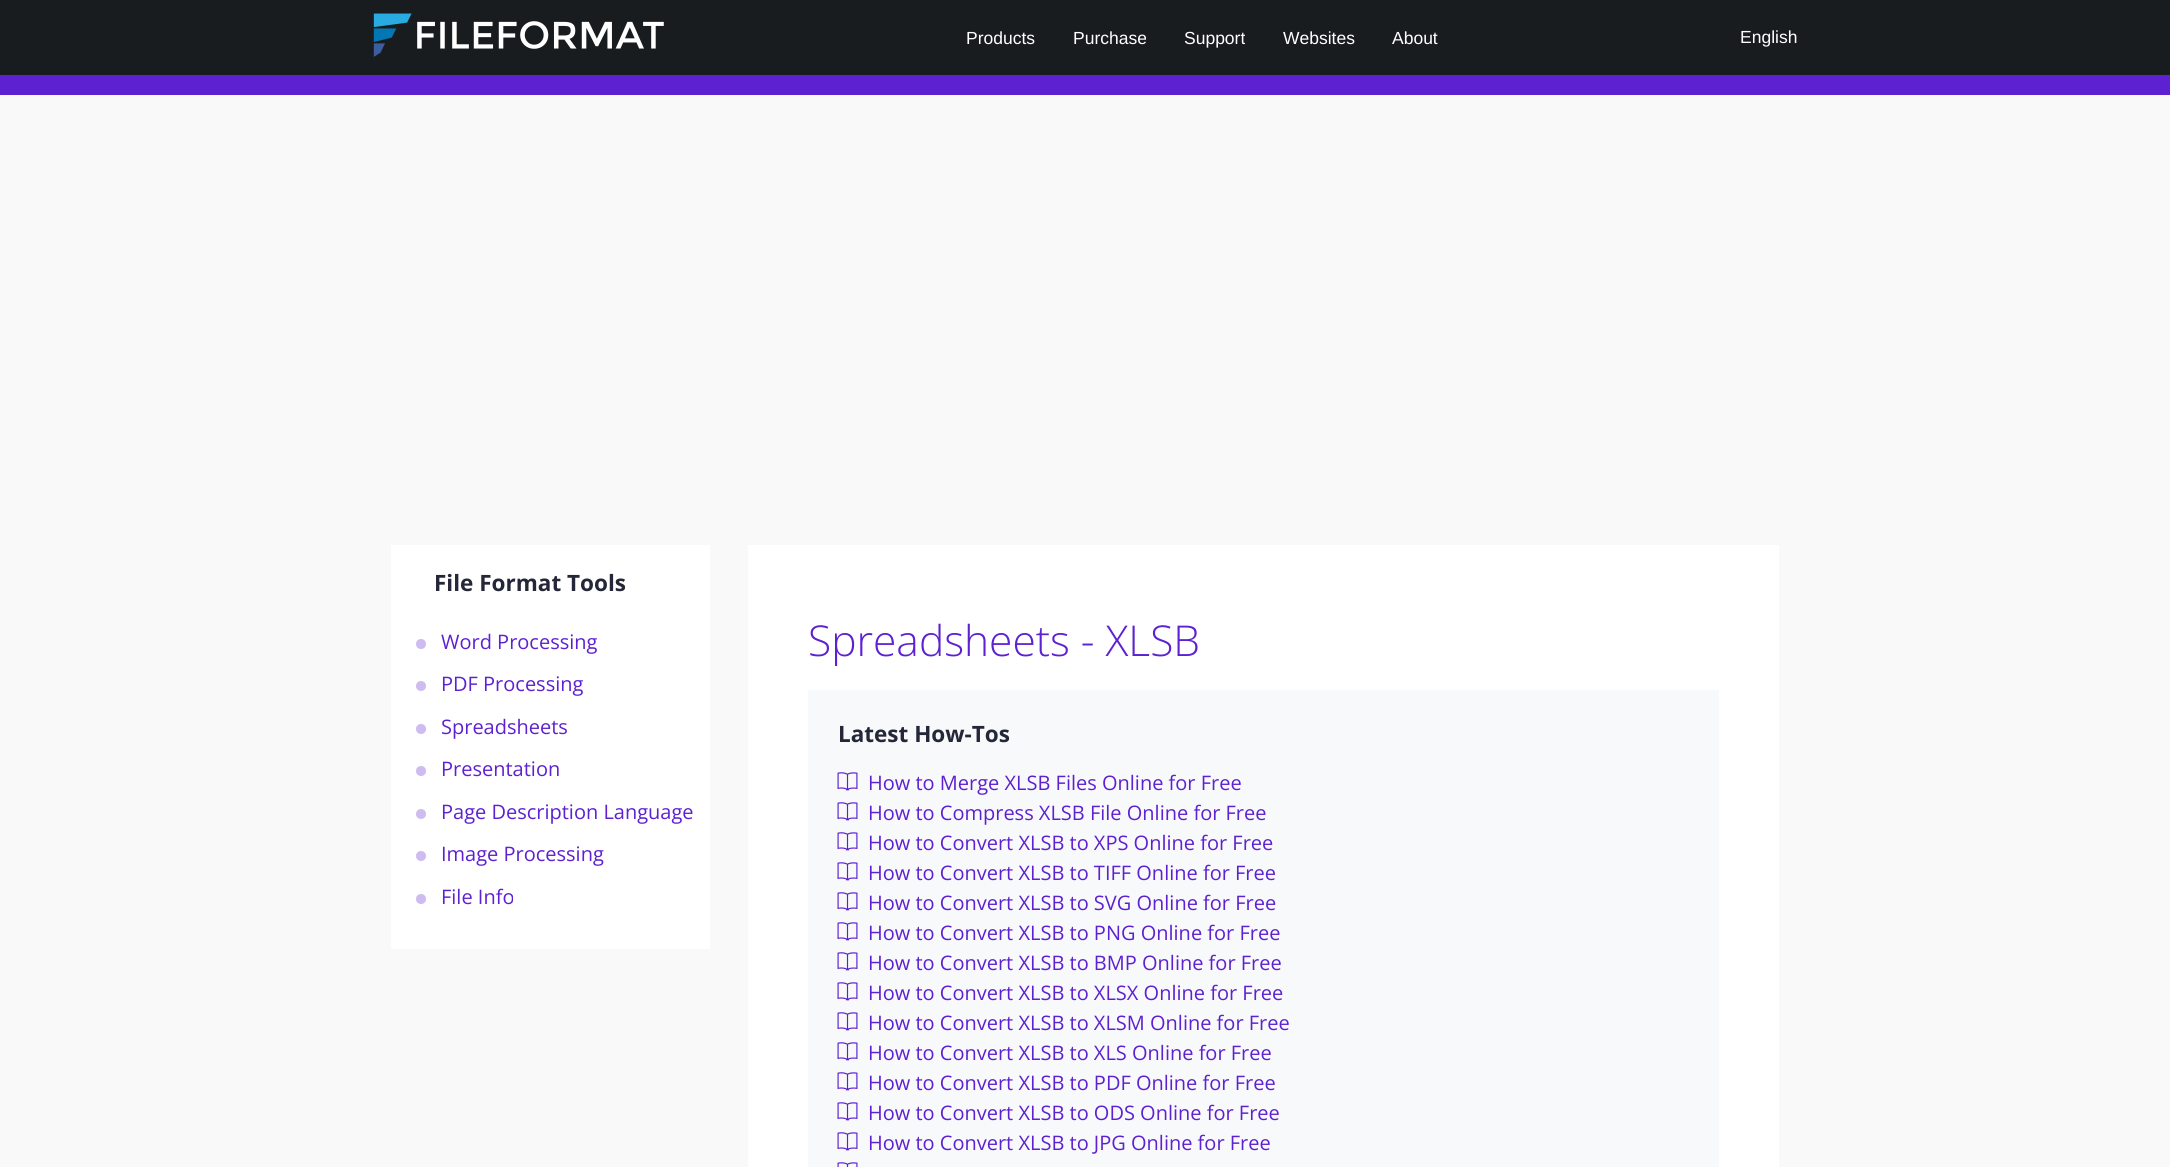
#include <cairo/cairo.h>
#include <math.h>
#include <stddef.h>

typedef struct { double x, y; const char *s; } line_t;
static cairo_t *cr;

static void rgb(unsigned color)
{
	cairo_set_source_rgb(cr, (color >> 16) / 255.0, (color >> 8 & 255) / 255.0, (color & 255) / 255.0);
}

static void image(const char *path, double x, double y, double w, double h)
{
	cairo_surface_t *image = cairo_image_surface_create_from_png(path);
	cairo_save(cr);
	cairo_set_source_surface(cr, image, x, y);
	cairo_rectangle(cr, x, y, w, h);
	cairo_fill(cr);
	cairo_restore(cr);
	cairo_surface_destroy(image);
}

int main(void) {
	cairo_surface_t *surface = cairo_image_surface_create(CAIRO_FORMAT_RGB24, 2170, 1167);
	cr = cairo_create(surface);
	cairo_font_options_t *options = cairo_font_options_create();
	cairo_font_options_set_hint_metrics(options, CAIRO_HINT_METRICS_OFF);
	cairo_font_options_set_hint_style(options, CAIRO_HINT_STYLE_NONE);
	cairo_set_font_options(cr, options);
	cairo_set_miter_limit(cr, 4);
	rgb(0xf9f9f9);
	cairo_paint(cr);
	rgb(0x191c1e);
	cairo_rectangle(cr, 0, 0, 2170, 75);
	cairo_fill(cr);
	image("img/1.png", 373, 13, 291, 44);
	rgb(0x5d21d1);
	cairo_rectangle(cr, 0, 75, 2170, 20);
	cairo_fill(cr);
	rgb(0xffffff);
	cairo_rectangle(cr, 391, 545, 319, 404);
	cairo_fill(cr);
	rgb(0xcebcf1);
	cairo_arc(cr, 421, 644, 5, 0, 2 * M_PI);
	cairo_fill(cr);
	cairo_arc(cr, 421, 686, 5, 0, 2 * M_PI);
	cairo_fill(cr);
	cairo_arc(cr, 421, 729, 5, 0, 2 * M_PI);
	cairo_fill(cr);
	cairo_arc(cr, 421, 771, 5, 0, 2 * M_PI);
	cairo_fill(cr);
	cairo_arc(cr, 421, 814, 5, 0, 2 * M_PI);
	cairo_fill(cr);
	cairo_arc(cr, 421, 856, 5, 0, 2 * M_PI);
	cairo_fill(cr);
	cairo_arc(cr, 421, 899, 5, 0, 2 * M_PI);
	cairo_fill(cr);
	rgb(0xffffff);
	cairo_rectangle(cr, 748, 545, 1031, 622);
	cairo_fill(cr);
	rgb(0xf8f9fa);
	cairo_rectangle(cr, 808, 690, 911, 477);
	cairo_fill(cr);
	image("img/2.png", 837, 772, 21, 19);
	image("img/2.png", 837, 802, 21, 19);
	image("img/2.png", 837, 832, 21, 19);
	image("img/2.png", 837, 862, 21, 19);
	image("img/2.png", 837, 892, 21, 19);
	image("img/2.png", 837, 922, 21, 19);
	image("img/2.png", 837, 952, 21, 19);
	image("img/2.png", 837, 982, 21, 19);
	image("img/2.png", 837, 1012, 21, 19);
	image("img/2.png", 837, 1042, 21, 19);
	image("img/2.png", 837, 1072, 21, 19);
	image("img/2.png", 837, 1102, 21, 19);
	image("img/2.png", 837, 1132, 21, 19);
	image("img/3.png", 837, 1162, 21, 5);
	cairo_select_font_face(cr, "Liberation Sans", CAIRO_FONT_SLANT_NORMAL, CAIRO_FONT_WEIGHT_NORMAL);
	cairo_set_font_size(cr, 17.5);
	rgb(0xffffff);
	{
		static const line_t items[] = {
			{966, 44, "Products"},
			{1073, 44, "Purchase"},
			{1184, 44, "Support"},
			{1283, 44, "Websites"},
			{1392, 44, "About"},
			{1740, 43, "English"},
		};
		for (size_t i = 0; i < sizeof items / sizeof *items; i++) {
			cairo_move_to(cr, items[i].x, items[i].y);
			cairo_show_text(cr, items[i].s);
		}
	}
	cairo_select_font_face(cr, "Open Sans", CAIRO_FONT_SLANT_NORMAL, CAIRO_FONT_WEIGHT_BOLD);
	cairo_set_font_size(cr, 22.5);
	rgb(0x242738);
	cairo_move_to(cr, 434, 591);
	cairo_show_text(cr, "File Format Tools");
	cairo_select_font_face(cr, "Open Sans", CAIRO_FONT_SLANT_NORMAL, CAIRO_FONT_WEIGHT_NORMAL);
	cairo_set_font_size(cr, 20);
	rgb(0x5d21d1);
	{
		static const line_t items[] = {
			{441, 649, "Word Processing"},
			{441, 691, "PDF Processing"},
			{441, 734, "Spreadsheets"},
			{441, 776, "Presentation"},
			{441, 819, "Page Description Language"},
			{441, 861, "Image Processing"},
			{441, 904, "File Info"},
		};
		for (size_t i = 0; i < sizeof items / sizeof *items; i++) {
			cairo_move_to(cr, items[i].x, items[i].y);
			cairo_show_text(cr, items[i].s);
		}
	}
	cairo_select_font_face(cr, "Open Sans Light", CAIRO_FONT_SLANT_NORMAL, CAIRO_FONT_WEIGHT_NORMAL);
	cairo_set_font_size(cr, 42.5);
	cairo_move_to(cr, 808, 656);
	cairo_show_text(cr, "Spreadsheets - XLSB");
	cairo_select_font_face(cr, "Open Sans", CAIRO_FONT_SLANT_NORMAL, CAIRO_FONT_WEIGHT_BOLD);
	cairo_set_font_size(cr, 22.5);
	rgb(0x242738);
	cairo_move_to(cr, 838, 742);
	cairo_show_text(cr, "Latest How-Tos");
	cairo_select_font_face(cr, "Open Sans", CAIRO_FONT_SLANT_NORMAL, CAIRO_FONT_WEIGHT_NORMAL);
	cairo_set_font_size(cr, 20);
	rgb(0x5d21d1);
	{
		static const line_t items[] = {
			{868, 790, "How to Merge XLSB Files Online for Free"},
			{868, 820, "How to Compress XLSB File Online for Free"},
			{868, 850, "How to Convert XLSB to XPS Online for Free"},
			{868, 880, "How to Convert XLSB to TIFF Online for Free"},
			{868, 910, "How to Convert XLSB to SVG Online for Free"},
			{868, 940, "How to Convert XLSB to PNG Online for Free"},
			{868, 970, "How to Convert XLSB to BMP Online for Free"},
			{868, 1000, "How to Convert XLSB to XLSX Online for Free"},
			{868, 1030, "How to Convert XLSB to XLSM Online for Free"},
			{868, 1060, "How to Convert XLSB to XLS Online for Free"},
			{868, 1090, "How to Convert XLSB to PDF Online for Free"},
			{868, 1120, "How to Convert XLSB to ODS Online for Free"},
			{868, 1150, "How to Convert XLSB to JPG Online for Free"},
		};
		for (size_t i = 0; i < sizeof items / sizeof *items; i++) {
			cairo_move_to(cr, items[i].x, items[i].y);
			cairo_show_text(cr, items[i].s);
		}
	}
	cairo_surface_write_to_png(surface, "page.png");
	cairo_font_options_destroy(options);
	cairo_destroy(cr);
	cairo_surface_destroy(surface);
	return 0;
}
